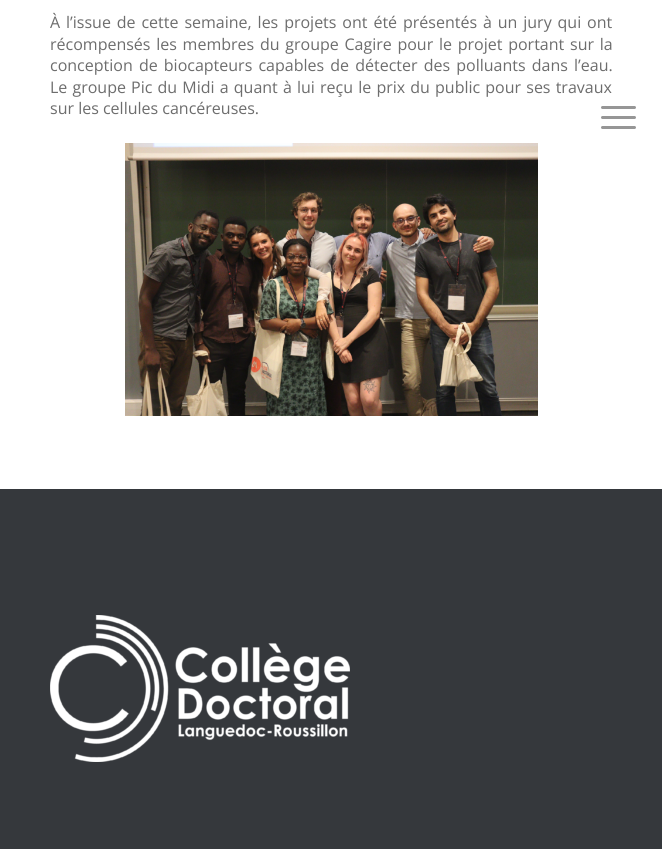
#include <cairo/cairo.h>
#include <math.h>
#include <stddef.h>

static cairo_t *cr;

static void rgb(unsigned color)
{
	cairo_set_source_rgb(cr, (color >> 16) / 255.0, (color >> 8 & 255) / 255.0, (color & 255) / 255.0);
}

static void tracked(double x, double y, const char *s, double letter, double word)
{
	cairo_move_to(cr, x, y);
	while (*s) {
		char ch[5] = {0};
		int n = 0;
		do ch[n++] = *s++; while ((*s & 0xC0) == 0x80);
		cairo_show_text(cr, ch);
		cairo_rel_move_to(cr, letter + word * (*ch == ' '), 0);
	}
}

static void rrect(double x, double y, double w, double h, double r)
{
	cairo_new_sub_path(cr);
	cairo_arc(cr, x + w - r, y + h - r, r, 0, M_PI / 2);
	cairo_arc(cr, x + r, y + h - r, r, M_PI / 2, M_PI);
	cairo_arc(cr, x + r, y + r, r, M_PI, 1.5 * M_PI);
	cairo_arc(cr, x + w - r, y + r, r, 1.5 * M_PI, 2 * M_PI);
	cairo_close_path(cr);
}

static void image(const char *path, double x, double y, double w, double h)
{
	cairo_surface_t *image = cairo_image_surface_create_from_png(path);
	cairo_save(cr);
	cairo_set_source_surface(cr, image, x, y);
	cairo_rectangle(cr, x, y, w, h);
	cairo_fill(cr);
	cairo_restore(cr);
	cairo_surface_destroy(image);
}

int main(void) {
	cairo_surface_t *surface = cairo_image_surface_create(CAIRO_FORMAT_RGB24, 662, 849);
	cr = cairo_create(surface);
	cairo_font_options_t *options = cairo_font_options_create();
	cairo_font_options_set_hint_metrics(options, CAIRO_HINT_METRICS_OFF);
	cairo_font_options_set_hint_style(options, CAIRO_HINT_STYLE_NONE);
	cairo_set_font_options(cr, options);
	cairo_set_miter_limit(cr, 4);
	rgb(0xffffff);
	cairo_paint(cr);
	image("img/1.png", 125, 143, 413, 273);
	rgb(0x35383c);
	cairo_rectangle(cr, 0, 489, 662, 360);
	cairo_fill(cr);
	image("img/2.png", 50, 615, 300, 147);
	rgb(0x969696);
	rrect(601, 116, 35, 3, 1.5);
	cairo_fill(cr);
	rrect(601, 106, 35, 3, 1.5);
	cairo_fill(cr);
	rrect(601, 126, 35, 3, 1.5);
	cairo_fill(cr);
	cairo_select_font_face(cr, "Open Sans", CAIRO_FONT_SLANT_NORMAL, CAIRO_FONT_WEIGHT_NORMAL);
	cairo_set_font_size(cr, 16);
	rgb(0x6d6d6d);
	tracked(50, 28, "À l’issue de cette semaine, les projets ont été présentés à un jury qui ont", 0, 1.75);
	tracked(50, 50, "récompensés les membres du groupe Cagire pour le projet portant sur la", 0, 1.6);
	tracked(50, 71, "conception de biocapteurs capables de détecter des polluants dans l’eau.", 0, 2);
	tracked(50, 93, "Le groupe Pic du Midi a quant à lui reçu le prix du public pour ses travaux", 0, 1);
	cairo_move_to(cr, 50, 114);
	cairo_show_text(cr, "sur les cellules cancéreuses.");
	cairo_surface_write_to_png(surface, "page.png");
	cairo_font_options_destroy(options);
	cairo_destroy(cr);
	cairo_surface_destroy(surface);
	return 0;
}
